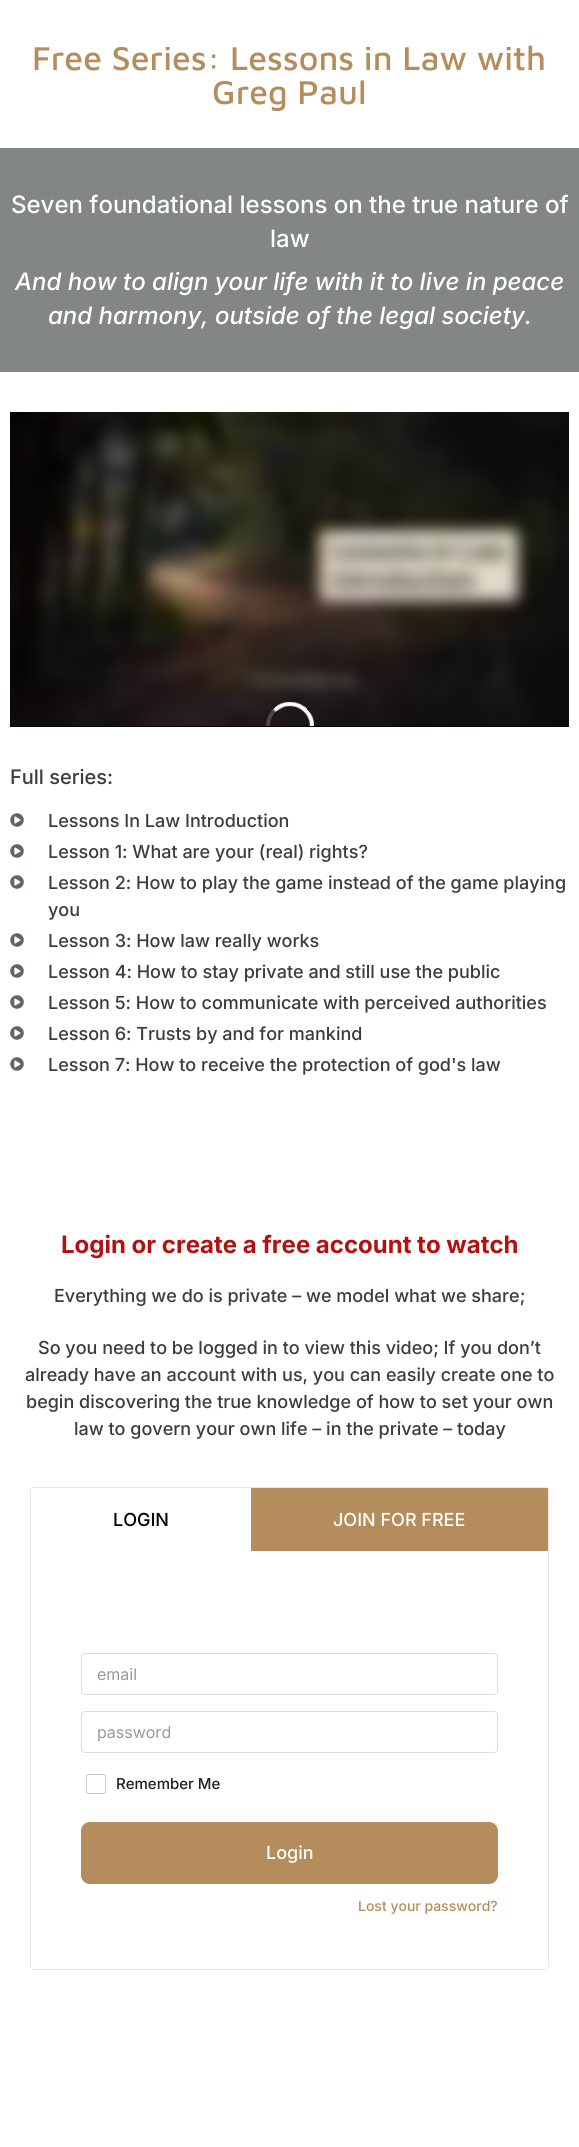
#include <cairo/cairo.h>
#include <math.h>
#include <stddef.h>

typedef struct { double x, y; const char *s; } line_t;
typedef struct { double x, y, w, h; unsigned color; } box_t;
static cairo_t *cr;

static void rgb(unsigned color)
{
	cairo_set_source_rgb(cr, (color >> 16) / 255.0, (color >> 8 & 255) / 255.0, (color & 255) / 255.0);
}

static void rrect(double x, double y, double w, double h, double r)
{
	cairo_new_sub_path(cr);
	cairo_arc(cr, x + w - r, y + h - r, r, 0, M_PI / 2);
	cairo_arc(cr, x + r, y + h - r, r, M_PI / 2, M_PI);
	cairo_arc(cr, x + r, y + r, r, M_PI, 1.5 * M_PI);
	cairo_arc(cr, x + w - r, y + r, r, 1.5 * M_PI, 2 * M_PI);
	cairo_close_path(cr);
}

static void image(const char *path, double x, double y, double w, double h)
{
	cairo_surface_t *image = cairo_image_surface_create_from_png(path);
	cairo_save(cr);
	cairo_set_source_surface(cr, image, x, y);
	cairo_rectangle(cr, x, y, w, h);
	cairo_fill(cr);
	cairo_restore(cr);
	cairo_surface_destroy(image);
}

int main(void) {
	cairo_surface_t *surface = cairo_image_surface_create(CAIRO_FORMAT_RGB24, 579, 2147);
	cr = cairo_create(surface);
	cairo_font_options_t *options = cairo_font_options_create();
	cairo_font_options_set_hint_metrics(options, CAIRO_HINT_METRICS_OFF);
	cairo_font_options_set_hint_style(options, CAIRO_HINT_STYLE_NONE);
	cairo_set_font_options(cr, options);
	cairo_set_miter_limit(cr, 4);
	rgb(0xffffff);
	cairo_paint(cr);
	rgb(0x838784);
	cairo_rectangle(cr, 0, 148, 579, 224);
	cairo_fill(cr);
	rgb(0x000000);
	cairo_rectangle(cr, 10, 726, 559, 1);
	cairo_fill(cr);
	image("img/1.png", 10, 412, 559, 314);
	image("img/2.png", 10, 813, 14, 14);
	image("img/2.png", 10, 844, 14, 14);
	image("img/2.png", 10, 875, 14, 14);
	image("img/2.png", 10, 933, 14, 14);
	image("img/2.png", 10, 964, 14, 14);
	image("img/2.png", 10, 995, 14, 14);
	image("img/2.png", 10, 1026, 14, 14);
	image("img/2.png", 10, 1057, 14, 14);
	rrect(30.5, 1487.5, 518, 482, 3.5);
	rgb(0xe6e8e6);
	cairo_set_line_width(cr, 1);
	cairo_stroke(cr);
	{
		static const box_t items[] = {
			{31, 1488, 2, 2, 0xffffff},
			{251, 1488, 297, 63, 0xb58c5b},
			{31, 1967, 517, 2, 0xffffff},
		};
		for (size_t i = 0; i < sizeof items / sizeof *items; i++) {
			rgb(items[i].color);
			cairo_rectangle(cr, items[i].x, items[i].y, items[i].w, items[i].h);
			cairo_fill(cr);
		}
	}
	rrect(81.5, 1653.5, 416, 41, 3.5);
	rgb(0xdddddd);
	cairo_stroke(cr);
	rrect(81.5, 1711.5, 416, 41, 3.5);
	cairo_stroke(cr);
	rrect(86.5, 1774.5, 19, 19, 2.5);
	rgb(0xc9cbca);
	cairo_stroke(cr);
	rgb(0xb58c5b);
	rrect(81.5, 1822.5, 416, 61, 8.5);
	cairo_fill_preserve(cr);
	cairo_stroke(cr);
	cairo_select_font_face(cr, "Maven Pro Medium", CAIRO_FONT_SLANT_NORMAL, CAIRO_FONT_WEIGHT_NORMAL);
	cairo_set_font_size(cr, 34);
	cairo_move_to(cr, 32, 70);
	cairo_show_text(cr, "Free Series: Lessons in Law with");
	cairo_move_to(cr, 212, 104);
	cairo_show_text(cr, "Greg Paul");
	cairo_select_font_face(cr, "Inter Medium", CAIRO_FONT_SLANT_NORMAL, CAIRO_FONT_WEIGHT_NORMAL);
	cairo_set_font_size(cr, 24);
	rgb(0xffffff);
	cairo_move_to(cr, 11, 213);
	cairo_show_text(cr, "Seven foundational lessons on the true nature of");
	cairo_move_to(cr, 270, 247);
	cairo_show_text(cr, "law");
	cairo_select_font_face(cr, "Inter Medium", CAIRO_FONT_SLANT_ITALIC, CAIRO_FONT_WEIGHT_NORMAL);
	cairo_move_to(cr, 15, 290);
	cairo_show_text(cr, "And how to align your life with it to live in peace");
	cairo_move_to(cr, 48, 324);
	cairo_show_text(cr, "and harmony, outside of the legal society.");
	cairo_select_font_face(cr, "Inter Medium", CAIRO_FONT_SLANT_NORMAL, CAIRO_FONT_WEIGHT_NORMAL);
	cairo_set_font_size(cr, 20);
	rgb(0x383e3b);
	cairo_move_to(cr, 10, 784);
	cairo_show_text(cr, "Full series:");
	cairo_set_font_size(cr, 18);
	{
		static const line_t items[] = {
			{48, 827, "Lessons In Law Introduction"},
			{48, 858, "Lesson 1: What are your (real) rights?"},
			{48, 889, "Lesson 2: How to play the game instead of the game playing"},
			{48, 916, "you"},
			{48, 947, "Lesson 3: How law really works"},
			{48, 978, "Lesson 4: How to stay private and still use the public"},
			{48, 1009, "Lesson 5: How to communicate with perceived authorities"},
			{48, 1040, "Lesson 6: Trusts by and for mankind"},
			{48, 1071, "Lesson 7: How to receive the protection of god's law"},
		};
		for (size_t i = 0; i < sizeof items / sizeof *items; i++) {
			cairo_move_to(cr, items[i].x, items[i].y);
			cairo_show_text(cr, items[i].s);
		}
	}
	cairo_select_font_face(cr, "Inter", CAIRO_FONT_SLANT_NORMAL, CAIRO_FONT_WEIGHT_BOLD);
	cairo_set_font_size(cr, 24);
	rgb(0xb41010);
	cairo_move_to(cr, 61, 1253);
	cairo_show_text(cr, "Login or create a free account to watch");
	cairo_select_font_face(cr, "Inter Medium", CAIRO_FONT_SLANT_NORMAL, CAIRO_FONT_WEIGHT_NORMAL);
	cairo_set_font_size(cr, 18);
	rgb(0x383e3b);
	{
		static const line_t items[] = {
			{54, 1302, "Everything we do is private – we model what we share;"},
			{38, 1354, "So you need to be logged in to view this video; If you don’t"},
			{25, 1381, "already have an account with us, you can easily create one to"},
			{26, 1408, "begin discovering the true knowledge of how to set your own"},
			{74, 1435, "law to govern your own life – in the private – today"},
		};
		for (size_t i = 0; i < sizeof items / sizeof *items; i++) {
			cairo_move_to(cr, items[i].x, items[i].y);
			cairo_show_text(cr, items[i].s);
		}
	}
	rgb(0x000000);
	cairo_move_to(cr, 113, 1526);
	cairo_show_text(cr, "LOGIN");
	rgb(0xffffff);
	cairo_move_to(cr, 333, 1526);
	cairo_show_text(cr, "JOIN FOR FREE");
	cairo_select_font_face(cr, "Inter", CAIRO_FONT_SLANT_NORMAL, CAIRO_FONT_WEIGHT_NORMAL);
	cairo_set_font_size(cr, 16);
	rgb(0x999999);
	cairo_move_to(cr, 97, 1680);
	cairo_show_text(cr, "email");
	cairo_move_to(cr, 97, 1738);
	cairo_show_text(cr, "password");
	cairo_select_font_face(cr, "Inter Medium", CAIRO_FONT_SLANT_NORMAL, CAIRO_FONT_WEIGHT_NORMAL);
	cairo_set_font_size(cr, 15);
	rgb(0x1d201f);
	cairo_move_to(cr, 116, 1789);
	cairo_show_text(cr, "Remember Me");
	cairo_set_font_size(cr, 18);
	rgb(0xffffff);
	cairo_move_to(cr, 266, 1859);
	cairo_show_text(cr, "Login");
	cairo_set_font_size(cr, 14);
	rgb(0xb58c5b);
	cairo_move_to(cr, 358, 1911);
	cairo_show_text(cr, "Lost your password?");
	cairo_surface_write_to_png(surface, "page.png");
	cairo_font_options_destroy(options);
	cairo_destroy(cr);
	cairo_surface_destroy(surface);
	return 0;
}
